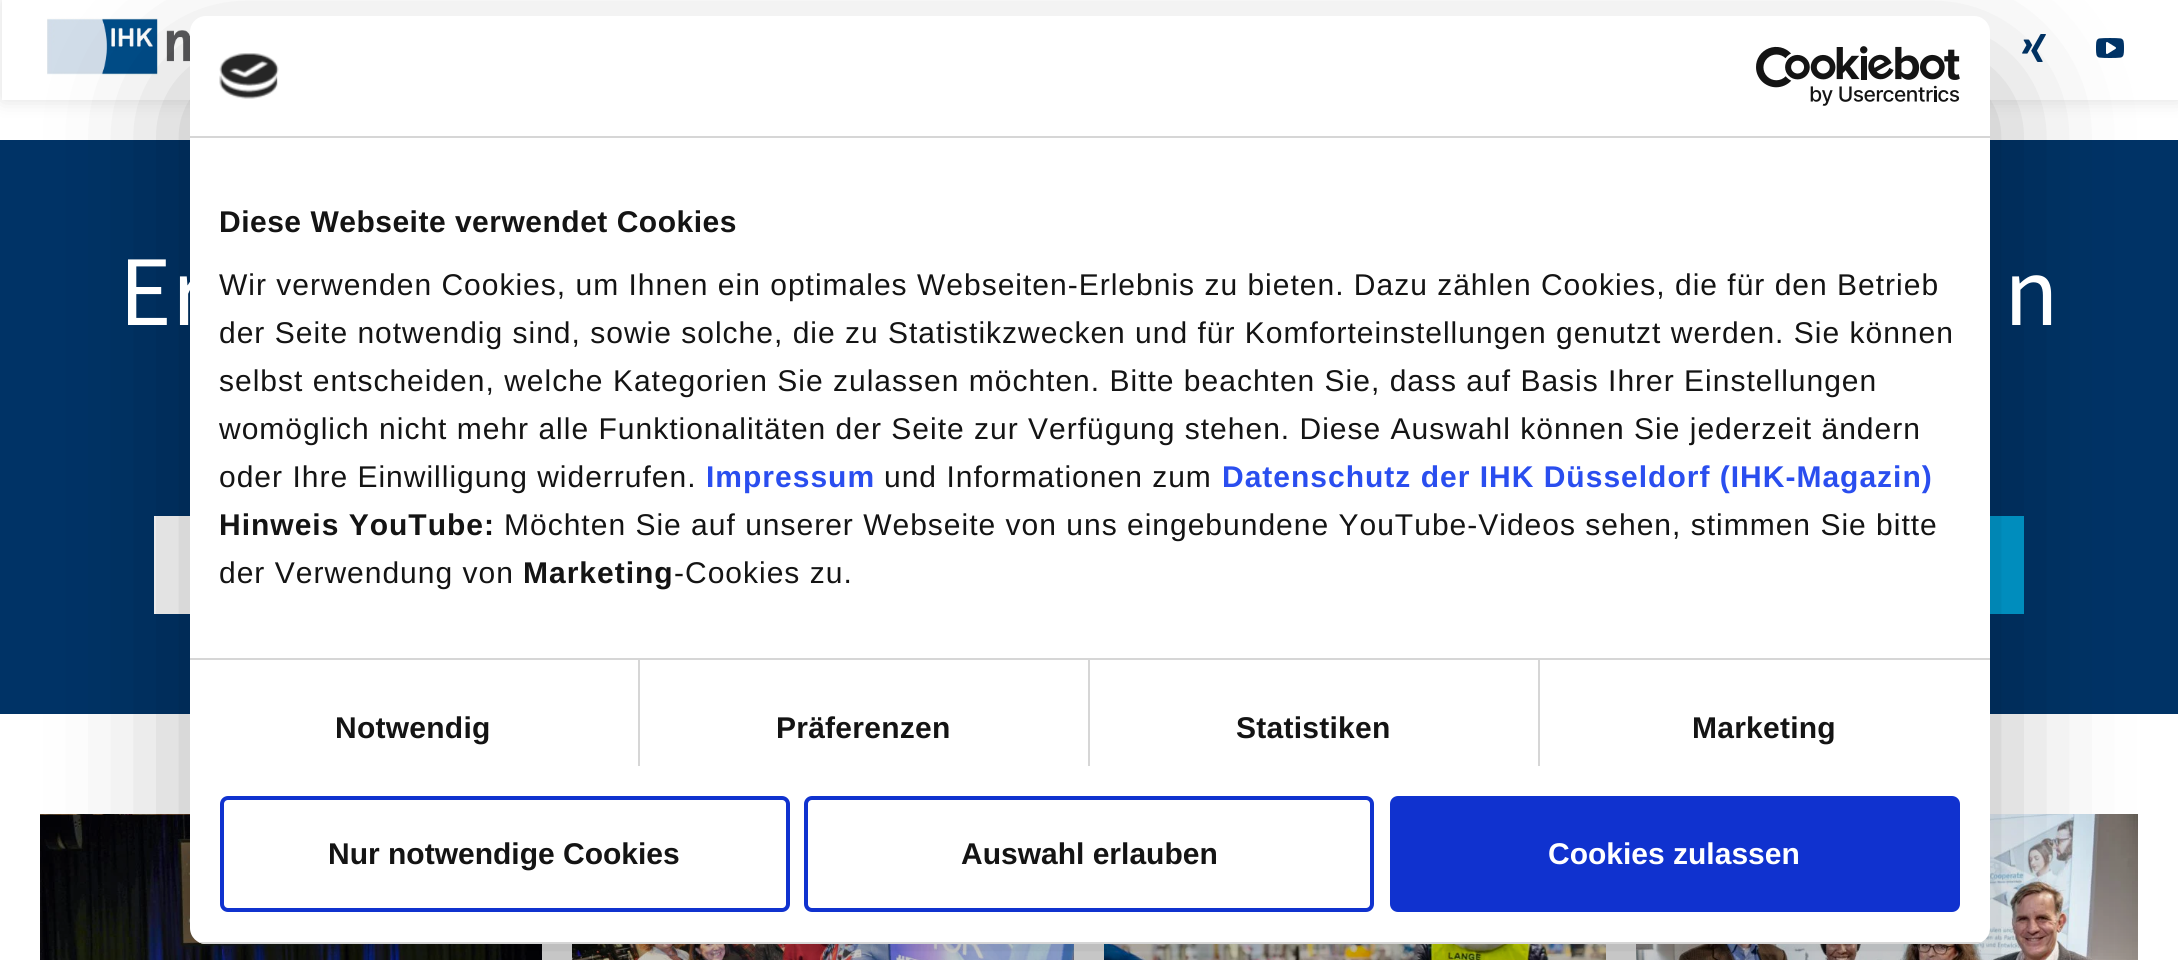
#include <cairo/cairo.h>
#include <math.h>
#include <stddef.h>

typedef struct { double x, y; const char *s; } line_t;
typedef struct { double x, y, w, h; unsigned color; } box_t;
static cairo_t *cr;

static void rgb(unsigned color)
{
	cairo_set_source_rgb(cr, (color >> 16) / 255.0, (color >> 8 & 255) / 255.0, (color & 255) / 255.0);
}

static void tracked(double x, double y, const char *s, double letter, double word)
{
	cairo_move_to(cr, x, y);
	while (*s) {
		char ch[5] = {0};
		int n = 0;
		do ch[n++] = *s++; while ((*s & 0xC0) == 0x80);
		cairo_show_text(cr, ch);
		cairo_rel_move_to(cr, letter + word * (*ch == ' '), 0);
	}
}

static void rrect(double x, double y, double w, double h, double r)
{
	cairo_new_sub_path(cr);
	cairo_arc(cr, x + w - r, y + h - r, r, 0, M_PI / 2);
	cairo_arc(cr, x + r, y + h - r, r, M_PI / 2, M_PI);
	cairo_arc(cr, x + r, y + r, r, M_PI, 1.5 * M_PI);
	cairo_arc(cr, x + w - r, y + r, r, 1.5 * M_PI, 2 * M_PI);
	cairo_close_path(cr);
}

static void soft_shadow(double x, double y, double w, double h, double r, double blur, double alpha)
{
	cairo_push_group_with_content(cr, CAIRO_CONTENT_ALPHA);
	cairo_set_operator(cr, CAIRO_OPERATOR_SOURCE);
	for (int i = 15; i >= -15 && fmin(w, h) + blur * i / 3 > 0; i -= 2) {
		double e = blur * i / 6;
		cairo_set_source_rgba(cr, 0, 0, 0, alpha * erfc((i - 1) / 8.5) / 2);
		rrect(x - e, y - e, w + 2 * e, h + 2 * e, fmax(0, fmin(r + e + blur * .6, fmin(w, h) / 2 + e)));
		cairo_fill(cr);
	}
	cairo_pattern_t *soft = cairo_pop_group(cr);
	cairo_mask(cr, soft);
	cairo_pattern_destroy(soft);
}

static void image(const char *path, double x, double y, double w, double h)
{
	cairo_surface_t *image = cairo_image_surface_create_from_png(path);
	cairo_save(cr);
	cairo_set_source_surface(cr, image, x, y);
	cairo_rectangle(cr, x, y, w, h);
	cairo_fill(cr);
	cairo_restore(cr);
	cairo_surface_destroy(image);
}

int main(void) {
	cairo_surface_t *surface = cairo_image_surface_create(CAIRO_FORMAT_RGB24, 2178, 960);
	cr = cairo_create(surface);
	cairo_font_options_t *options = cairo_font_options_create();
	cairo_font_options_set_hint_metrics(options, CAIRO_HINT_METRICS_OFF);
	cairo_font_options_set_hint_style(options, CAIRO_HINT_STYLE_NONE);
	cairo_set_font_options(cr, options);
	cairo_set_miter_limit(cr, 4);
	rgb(0xffffff);
	cairo_paint(cr);
	image("img/3.png", 47, 17, 154, 59);
	image("img/4.png", 2022, 34, 24, 28);
	image("img/5.png", 2096, 38, 28, 20);
	{
		static const box_t items[] = {
			{0, 140, 2178, 574, 0x003366},
			{154, 516, 36, 98, 0xffffff},
			{1990, 516, 34, 98, 0x009ed4},
		};
		for (size_t i = 0; i < sizeof items / sizeof *items; i++) {
			rgb(items[i].color);
			cairo_rectangle(cr, items[i].x, items[i].y, items[i].w, items[i].h);
			cairo_fill(cr);
		}
	}
	image("img/6.png", 40, 814, 502, 146);
	image("img/7.png", 572, 944, 502, 16);
	image("img/8.png", 1104, 944, 502, 16);
	image("img/9.png", 1636, 814, 502, 146);
	rgb(0x000000);
	soft_shadow(190, 80, 1800, 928, 16, 68, 0.3);
	cairo_save(cr);
	cairo_set_fill_rule(cr, CAIRO_FILL_RULE_EVEN_ODD);
	cairo_new_path(cr);
	cairo_move_to(cr, 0, 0);
	cairo_line_to(cr, 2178, 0);
	cairo_line_to(cr, 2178, 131);
	cairo_line_to(cr, 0, 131);
	cairo_close_path(cr);
	cairo_move_to(cr, 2, 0);
	cairo_line_to(cr, 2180, 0);
	cairo_line_to(cr, 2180, 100);
	cairo_line_to(cr, 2, 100);
	cairo_close_path(cr);
	cairo_clip(cr);
	soft_shadow(2, 0, 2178, 100, 0, 10, 0.12);
	cairo_restore(cr);
	rgb(0xffffff);
	rrect(190, 16, 1800, 928, 16);
	cairo_fill(cr);
	rgb(0xd6d6d6);
	cairo_rectangle(cr, 190, 136, 1800, 2);
	cairo_fill(cr);
	image("img/1.png", 219, 53, 60, 46);
	image("img/2.png", 1756, 46, 204, 60);
	{
		static const box_t items[] = {
			{190, 658, 1800, 2, 0xd6d6d6},
			{638, 660, 2, 106, 0xd6d6d6},
			{1088, 660, 2, 106, 0xd6d6d6},
			{1538, 660, 2, 106, 0xd6d6d6},
		};
		for (size_t i = 0; i < sizeof items / sizeof *items; i++) {
			rgb(items[i].color);
			cairo_rectangle(cr, items[i].x, items[i].y, items[i].w, items[i].h);
			cairo_fill(cr);
		}
	}
	cairo_save(cr);
	rrect(190, 16, 1800, 928, 16);
	cairo_clip(cr);
	cairo_rectangle(cr, 190, 942, 1800, 2);
	cairo_fill(cr);
	cairo_restore(cr);
	rrect(222, 798, 566, 112, 6);
	rgb(0x1032cf);
	cairo_set_line_width(cr, 4);
	cairo_stroke(cr);
	rrect(806, 798, 566, 112, 6);
	cairo_stroke(cr);
	rrect(1392, 798, 566, 112, 6);
	cairo_fill_preserve(cr);
	cairo_stroke(cr);
	cairo_select_font_face(cr, "Liberation Sans", CAIRO_FONT_SLANT_NORMAL, CAIRO_FONT_WEIGHT_BOLD);
	cairo_set_font_size(cr, 30);
	rgb(0x141414);
	tracked(219, 232, "Diese Webseite verwendet Cookies", 0.5, 0);
	cairo_select_font_face(cr, "Liberation Sans", CAIRO_FONT_SLANT_NORMAL, CAIRO_FONT_WEIGHT_NORMAL);
	{
		static const line_t items[] = {
			{219, 295, "Wir verwenden Cookies, um Ihnen ein optimales Webseiten-Erlebnis zu bieten. Dazu zählen Cookies, die für den Betrieb"},
			{219, 343, "der Seite notwendig sind, sowie solche, die zu Statistikzwecken und für Komforteinstellungen genutzt werden. Sie können"},
			{219, 391, "selbst entscheiden, welche Kategorien Sie zulassen möchten. Bitte beachten Sie, dass auf Basis Ihrer Einstellungen"},
			{219, 439, "womöglich nicht mehr alle Funktionalitäten der Seite zur Verfügung stehen. Diese Auswahl können Sie jederzeit ändern"},
			{219, 487, "oder Ihre Einwilligung widerrufen."},
		};
		for (size_t i = 0; i < sizeof items / sizeof *items; i++) {
			tracked(items[i].x, items[i].y, items[i].s, 1, 0);
		}
	}
	cairo_select_font_face(cr, "Liberation Sans", CAIRO_FONT_SLANT_NORMAL, CAIRO_FONT_WEIGHT_BOLD);
	rgb(0x2a4eef);
	tracked(706, 487, "Impressum", 1, 0);
	cairo_select_font_face(cr, "Liberation Sans", CAIRO_FONT_SLANT_NORMAL, CAIRO_FONT_WEIGHT_NORMAL);
	rgb(0x141414);
	tracked(884, 487, "und Informationen zum", 1, 0);
	cairo_select_font_face(cr, "Liberation Sans", CAIRO_FONT_SLANT_NORMAL, CAIRO_FONT_WEIGHT_BOLD);
	rgb(0x2a4eef);
	tracked(1222, 487, "Datenschutz der IHK Düsseldorf (IHK-Magazin)", 1, 0);
	rgb(0x141414);
	tracked(219, 535, "Hinweis YouTube:", 1, 0);
	cairo_select_font_face(cr, "Liberation Sans", CAIRO_FONT_SLANT_NORMAL, CAIRO_FONT_WEIGHT_NORMAL);
	tracked(504, 535, "Möchten Sie auf unserer Webseite von uns eingebundene YouTube-Videos sehen, stimmen Sie bitte", 1, 0);
	tracked(219, 583, "der Verwendung von", 1, 0);
	cairo_select_font_face(cr, "Liberation Sans", CAIRO_FONT_SLANT_NORMAL, CAIRO_FONT_WEIGHT_BOLD);
	tracked(523, 583, "Marketing", 1, 0);
	cairo_select_font_face(cr, "Liberation Sans", CAIRO_FONT_SLANT_NORMAL, CAIRO_FONT_WEIGHT_NORMAL);
	tracked(674, 583, "-Cookies zu.", 1, 0);
	cairo_select_font_face(cr, "Liberation Sans", CAIRO_FONT_SLANT_NORMAL, CAIRO_FONT_WEIGHT_BOLD);
	{
		static const line_t items[] = {
			{335, 738, "Notwendig"},
			{776, 738, "Präferenzen"},
			{1236, 738, "Statistiken"},
			{1692, 738, "Marketing"},
		};
		for (size_t i = 0; i < sizeof items / sizeof *items; i++) {
			tracked(items[i].x, items[i].y, items[i].s, 0.25, 0);
		}
	}
	cairo_move_to(cr, 328, 864);
	cairo_show_text(cr, "Nur notwendige Cookies");
	cairo_move_to(cr, 961, 864);
	cairo_show_text(cr, "Auswahl erlauben");
	rgb(0xffffff);
	cairo_move_to(cr, 1548, 864);
	cairo_show_text(cr, "Cookies zulassen");
	cairo_select_font_face(cr, "Source Sans Pro", CAIRO_FONT_SLANT_NORMAL, CAIRO_FONT_WEIGHT_NORMAL);
	cairo_set_font_size(cr, 100);
	cairo_move_to(cr, 119, 325);
	cairo_show_text(cr, "Er");
	cairo_move_to(cr, 2004, 325);
	cairo_show_text(cr, "n");
	cairo_surface_write_to_png(surface, "page.png");
	cairo_font_options_destroy(options);
	cairo_destroy(cr);
	cairo_surface_destroy(surface);
	return 0;
}
